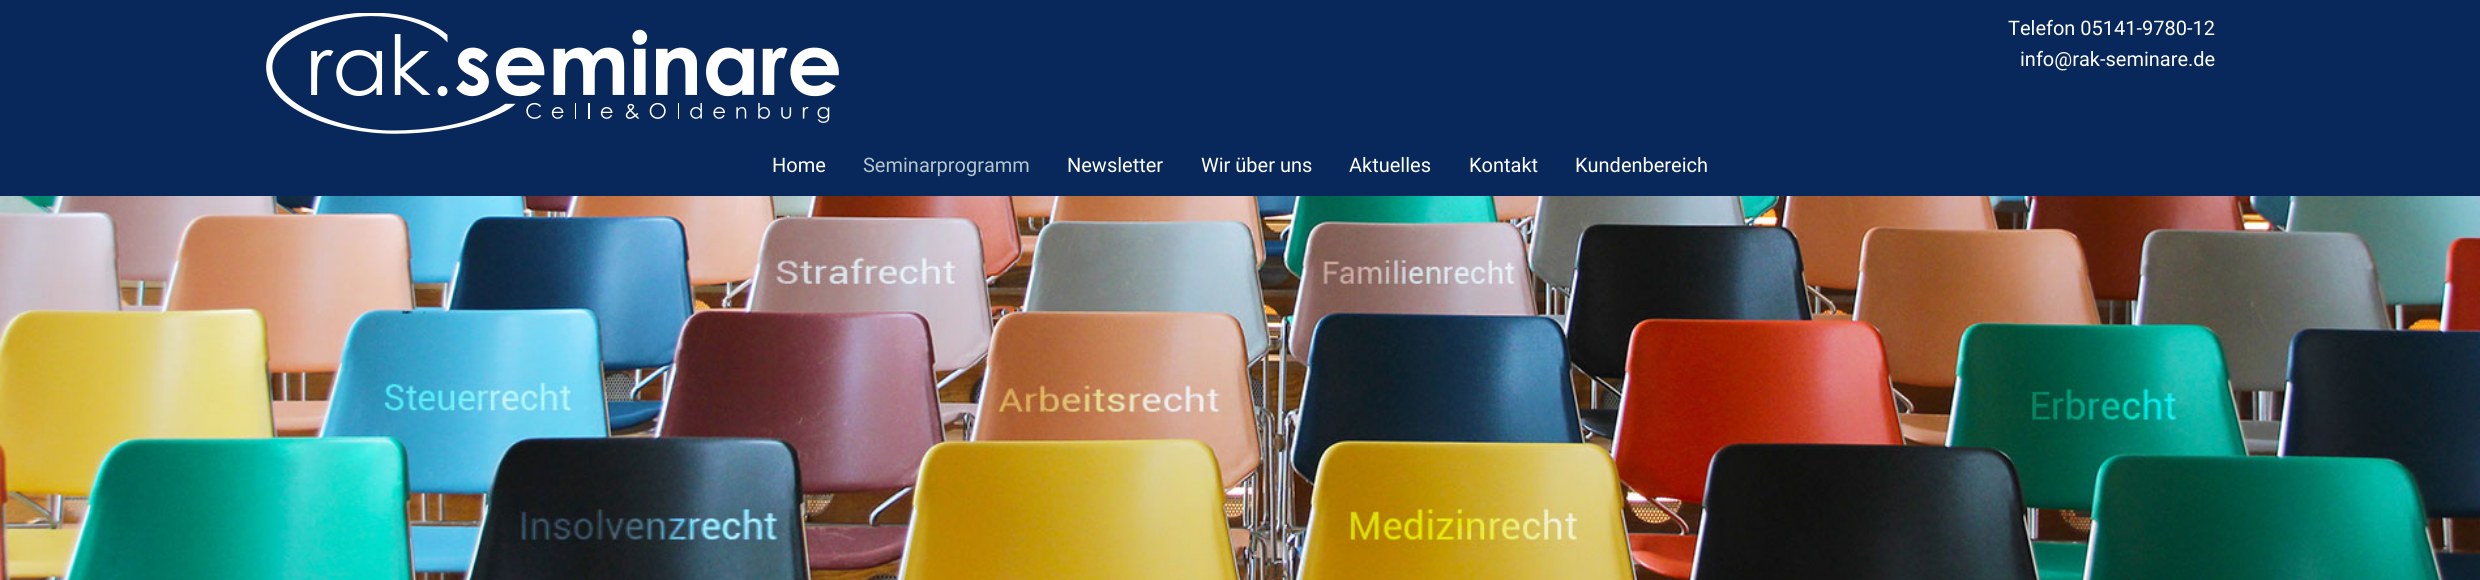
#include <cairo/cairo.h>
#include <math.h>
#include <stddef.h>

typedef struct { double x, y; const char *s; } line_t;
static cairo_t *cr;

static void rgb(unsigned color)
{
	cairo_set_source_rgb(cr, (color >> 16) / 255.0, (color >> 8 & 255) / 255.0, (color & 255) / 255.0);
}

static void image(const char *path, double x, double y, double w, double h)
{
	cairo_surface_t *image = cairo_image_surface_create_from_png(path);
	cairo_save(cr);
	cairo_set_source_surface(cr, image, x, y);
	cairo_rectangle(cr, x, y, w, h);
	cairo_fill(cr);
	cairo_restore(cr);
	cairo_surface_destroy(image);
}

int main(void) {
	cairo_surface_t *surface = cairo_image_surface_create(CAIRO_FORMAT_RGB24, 2480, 580);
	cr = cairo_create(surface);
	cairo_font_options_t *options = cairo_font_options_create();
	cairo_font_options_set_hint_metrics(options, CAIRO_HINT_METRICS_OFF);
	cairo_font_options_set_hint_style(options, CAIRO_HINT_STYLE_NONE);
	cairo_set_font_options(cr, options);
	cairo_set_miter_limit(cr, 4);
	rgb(0xffffff);
	cairo_paint(cr);
	rgb(0x08285b);
	cairo_rectangle(cr, 0, 0, 2480, 196);
	cairo_fill(cr);
	image("img/1.png", 266, 13, 573, 121);
	image("img/2.png", 0, 196, 2480, 384);
	cairo_select_font_face(cr, "Roboto", CAIRO_FONT_SLANT_NORMAL, CAIRO_FONT_WEIGHT_NORMAL);
	cairo_set_font_size(cr, 20);
	rgb(0xffffff);
	{
		static const line_t items[] = {
			{2008, 35, "Telefon 05141-9780-12"},
			{2020, 66, "info@rak-seminare.de"},
			{772, 172, "Home"},
		};
		for (size_t i = 0; i < sizeof items / sizeof *items; i++) {
			cairo_move_to(cr, items[i].x, items[i].y);
			cairo_show_text(cr, items[i].s);
		}
	}
	rgb(0xb4c5cc);
	cairo_move_to(cr, 863, 172);
	cairo_show_text(cr, "Seminarprogramm");
	rgb(0xffffff);
	{
		static const line_t items[] = {
			{1067, 172, "Newsletter"},
			{1201, 172, "Wir über uns"},
			{1349, 172, "Aktuelles"},
			{1469, 172, "Kontakt"},
			{1575, 172, "Kundenbereich"},
		};
		for (size_t i = 0; i < sizeof items / sizeof *items; i++) {
			cairo_move_to(cr, items[i].x, items[i].y);
			cairo_show_text(cr, items[i].s);
		}
	}
	cairo_surface_write_to_png(surface, "page.png");
	cairo_font_options_destroy(options);
	cairo_destroy(cr);
	cairo_surface_destroy(surface);
	return 0;
}
